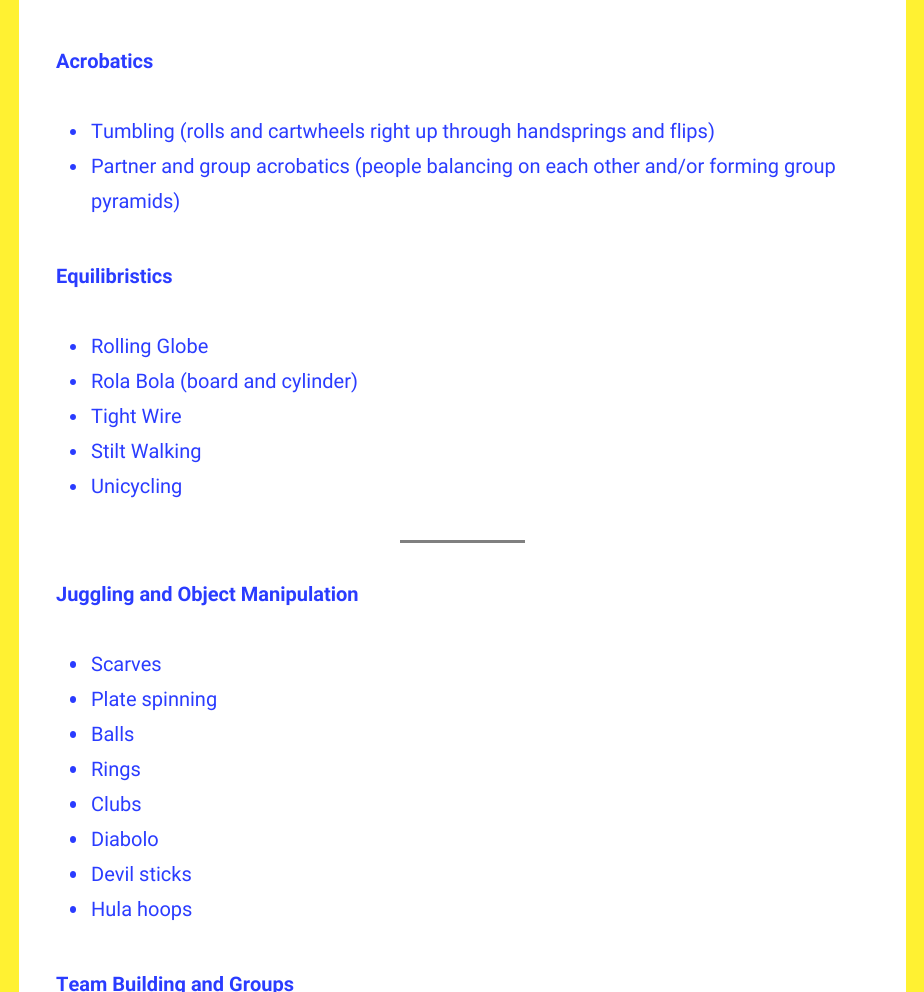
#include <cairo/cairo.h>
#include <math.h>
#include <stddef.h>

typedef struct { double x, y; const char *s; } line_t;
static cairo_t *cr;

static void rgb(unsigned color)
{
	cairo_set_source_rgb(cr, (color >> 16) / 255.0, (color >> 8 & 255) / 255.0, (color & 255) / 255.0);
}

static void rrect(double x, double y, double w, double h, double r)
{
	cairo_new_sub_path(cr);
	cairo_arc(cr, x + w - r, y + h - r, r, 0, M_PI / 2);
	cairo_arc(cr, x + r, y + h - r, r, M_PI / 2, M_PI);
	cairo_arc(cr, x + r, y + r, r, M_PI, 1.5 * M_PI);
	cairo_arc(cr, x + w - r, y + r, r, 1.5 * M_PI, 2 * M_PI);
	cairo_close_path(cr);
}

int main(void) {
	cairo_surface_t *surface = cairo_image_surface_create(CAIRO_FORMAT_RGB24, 924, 992);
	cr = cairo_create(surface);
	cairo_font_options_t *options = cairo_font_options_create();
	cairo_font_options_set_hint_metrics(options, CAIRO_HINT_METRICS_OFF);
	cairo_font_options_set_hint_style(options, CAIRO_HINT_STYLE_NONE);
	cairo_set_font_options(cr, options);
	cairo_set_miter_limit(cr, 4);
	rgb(0xfff132);
	cairo_paint(cr);
	rgb(0xffffff);
	cairo_rectangle(cr, 19, 0, 887, 992);
	cairo_fill(cr);
	rgb(0x2a3cff);
	cairo_arc(cr, 73, 132, 3, 0, 2 * M_PI);
	cairo_fill(cr);
	cairo_arc(cr, 73, 167, 3, 0, 2 * M_PI);
	cairo_fill(cr);
	cairo_arc(cr, 73, 347, 3, 0, 2 * M_PI);
	cairo_fill(cr);
	cairo_arc(cr, 73, 382, 3, 0, 2 * M_PI);
	cairo_fill(cr);
	cairo_arc(cr, 73, 417, 3, 0, 2 * M_PI);
	cairo_fill(cr);
	cairo_arc(cr, 73, 452, 3, 0, 2 * M_PI);
	cairo_fill(cr);
	cairo_arc(cr, 73, 487, 3, 0, 2 * M_PI);
	cairo_fill(cr);
	rgb(0x808080);
	cairo_rectangle(cr, 400, 540, 125, 3);
	cairo_fill(cr);
	rgb(0x2a3cff);
	rrect(70, 661, 6, 7, 3);
	cairo_fill(cr);
	rrect(70, 696, 6, 7, 3);
	cairo_fill(cr);
	rrect(70, 731, 6, 7, 3);
	cairo_fill(cr);
	rrect(70, 766, 6, 7, 3);
	cairo_fill(cr);
	rrect(70, 801, 6, 7, 3);
	cairo_fill(cr);
	rrect(70, 836, 6, 7, 3);
	cairo_fill(cr);
	rrect(70, 871, 6, 7, 3);
	cairo_fill(cr);
	rrect(70, 906, 6, 7, 3);
	cairo_fill(cr);
	cairo_select_font_face(cr, "Roboto", CAIRO_FONT_SLANT_NORMAL, CAIRO_FONT_WEIGHT_BOLD);
	cairo_set_font_size(cr, 20);
	cairo_move_to(cr, 56, 68);
	cairo_show_text(cr, "Acrobatics");
	cairo_select_font_face(cr, "Roboto", CAIRO_FONT_SLANT_NORMAL, CAIRO_FONT_WEIGHT_NORMAL);
	{
		static const line_t items[] = {
			{91, 138, "Tumbling (rolls and cartwheels right up through handsprings and flips)"},
			{91, 173, "Partner and group acrobatics (people balancing on each other and/or forming group"},
			{91, 208, "pyramids)"},
		};
		for (size_t i = 0; i < sizeof items / sizeof *items; i++) {
			cairo_move_to(cr, items[i].x, items[i].y);
			cairo_show_text(cr, items[i].s);
		}
	}
	cairo_select_font_face(cr, "Roboto", CAIRO_FONT_SLANT_NORMAL, CAIRO_FONT_WEIGHT_BOLD);
	cairo_move_to(cr, 56, 283);
	cairo_show_text(cr, "Equilibristics");
	cairo_select_font_face(cr, "Roboto", CAIRO_FONT_SLANT_NORMAL, CAIRO_FONT_WEIGHT_NORMAL);
	{
		static const line_t items[] = {
			{91, 353, "Rolling Globe"},
			{91, 388, "Rola Bola (board and cylinder)"},
			{91, 423, "Tight Wire"},
			{91, 458, "Stilt Walking"},
			{91, 493, "Unicycling"},
		};
		for (size_t i = 0; i < sizeof items / sizeof *items; i++) {
			cairo_move_to(cr, items[i].x, items[i].y);
			cairo_show_text(cr, items[i].s);
		}
	}
	cairo_select_font_face(cr, "Roboto", CAIRO_FONT_SLANT_NORMAL, CAIRO_FONT_WEIGHT_BOLD);
	cairo_move_to(cr, 56, 601);
	cairo_show_text(cr, "Juggling and Object Manipulation");
	cairo_select_font_face(cr, "Roboto", CAIRO_FONT_SLANT_NORMAL, CAIRO_FONT_WEIGHT_NORMAL);
	{
		static const line_t items[] = {
			{91, 671, "Scarves"},
			{91, 706, "Plate spinning"},
			{91, 741, "Balls"},
			{91, 776, "Rings"},
			{91, 811, "Clubs"},
			{91, 846, "Diabolo"},
			{91, 881, "Devil sticks"},
			{91, 916, "Hula hoops"},
		};
		for (size_t i = 0; i < sizeof items / sizeof *items; i++) {
			cairo_move_to(cr, items[i].x, items[i].y);
			cairo_show_text(cr, items[i].s);
		}
	}
	cairo_select_font_face(cr, "Roboto", CAIRO_FONT_SLANT_NORMAL, CAIRO_FONT_WEIGHT_BOLD);
	cairo_move_to(cr, 56, 991);
	cairo_show_text(cr, "Team Building and Groups");
	cairo_surface_write_to_png(surface, "page.png");
	cairo_font_options_destroy(options);
	cairo_destroy(cr);
	cairo_surface_destroy(surface);
	return 0;
}
